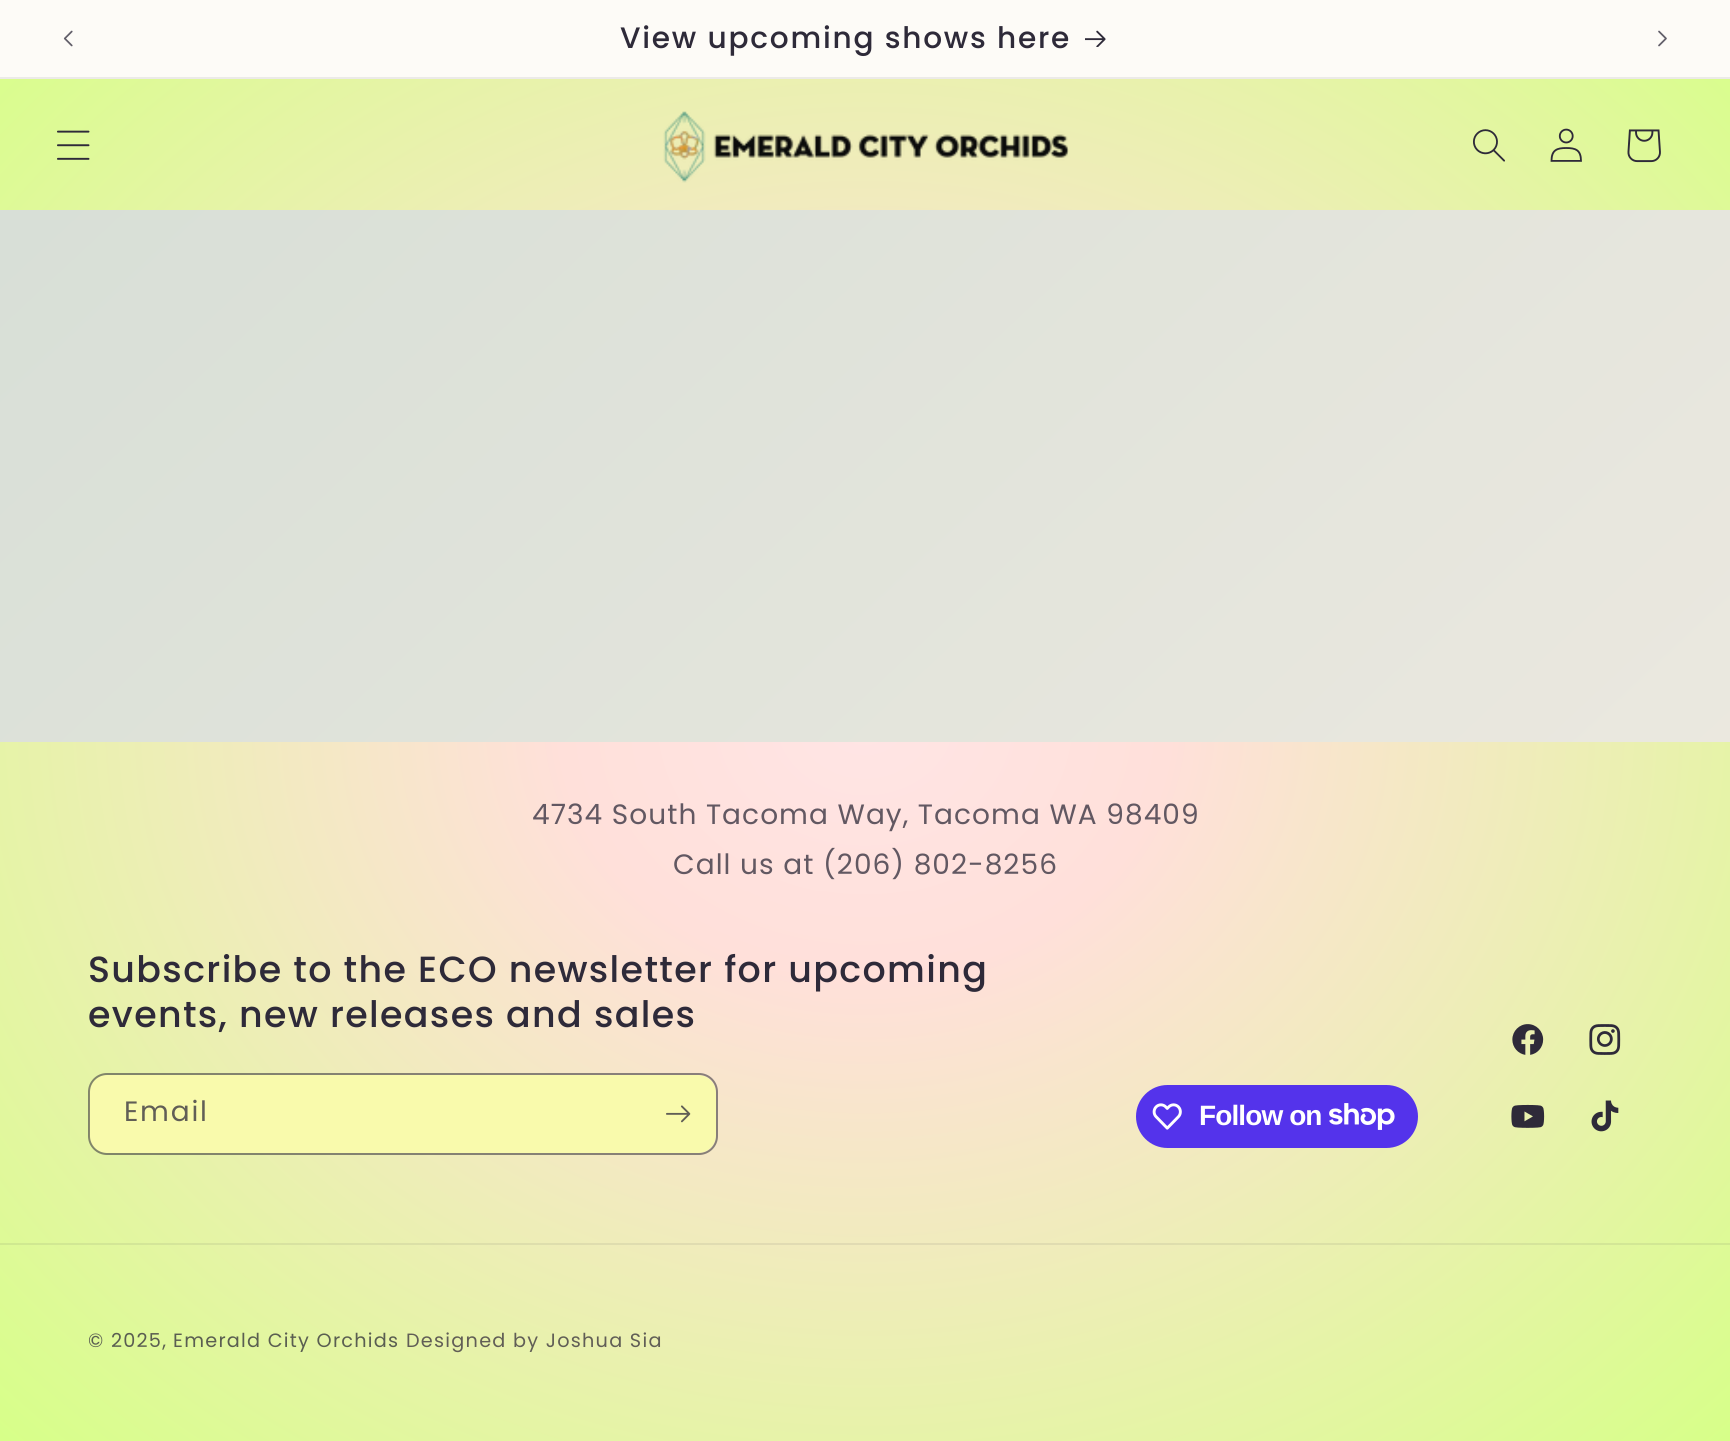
#include <cairo/cairo.h>
#include <math.h>
#include <stddef.h>

static cairo_t *cr;

static void rgb(unsigned color)
{
	cairo_set_source_rgb(cr, (color >> 16) / 255.0, (color >> 8 & 255) / 255.0, (color & 255) / 255.0);
}

static void tracked(double x, double y, const char *s, double letter, double word)
{
	cairo_move_to(cr, x, y);
	while (*s) {
		char ch[5] = {0};
		int n = 0;
		do ch[n++] = *s++; while ((*s & 0xC0) == 0x80);
		cairo_show_text(cr, ch);
		cairo_rel_move_to(cr, letter + word * (*ch == ' '), 0);
	}
}

static void rrect(double x, double y, double w, double h, double r)
{
	cairo_new_sub_path(cr);
	cairo_arc(cr, x + w - r, y + h - r, r, 0, M_PI / 2);
	cairo_arc(cr, x + r, y + h - r, r, M_PI / 2, M_PI);
	cairo_arc(cr, x + r, y + r, r, M_PI, 1.5 * M_PI);
	cairo_arc(cr, x + w - r, y + r, r, 1.5 * M_PI, 2 * M_PI);
	cairo_close_path(cr);
}

static void image(const char *path, double x, double y, double w, double h)
{
	cairo_surface_t *image = cairo_image_surface_create_from_png(path);
	cairo_save(cr);
	cairo_set_source_surface(cr, image, x, y);
	cairo_rectangle(cr, x, y, w, h);
	cairo_fill(cr);
	cairo_restore(cr);
	cairo_surface_destroy(image);
}

int main(void) {
	cairo_surface_t *surface = cairo_image_surface_create(CAIRO_FORMAT_RGB24, 1730, 1441);
	cr = cairo_create(surface);
	cairo_font_options_t *options = cairo_font_options_create();
	cairo_font_options_set_hint_metrics(options, CAIRO_HINT_METRICS_OFF);
	cairo_font_options_set_hint_style(options, CAIRO_HINT_STYLE_NONE);
	cairo_set_font_options(cr, options);
	cairo_set_miter_limit(cr, 4);
	cairo_pattern_t *gradient;
	rgb(0xffffff);
	cairo_paint(cr);
	gradient = cairo_pattern_create_linear(103, -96, 1628, 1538);
	cairo_pattern_add_color_stop_rgba(gradient, 0, 0.839, 0.871, 0.839, 1);
	cairo_pattern_add_color_stop_rgba(gradient, 1, 0.945, 0.922, 0.886, 1);
	cairo_set_source(cr, gradient);
	cairo_pattern_destroy(gradient);
	cairo_rectangle(cr, 0, 210, 1730, 532);
	cairo_fill(cr);
	rgb(0xfdfbf7);
	cairo_rectangle(cr, 0, 0, 1730, 77);
	cairo_fill(cr);
	rgb(0xeceae8);
	cairo_rectangle(cr, 0, 77, 1730, 2);
	cairo_fill(cr);
	image("img/1.png", 63, 30, 10, 17);
	image("img/2.png", 1085, 30, 21, 17);
	image("img/3.png", 1658, 30, 9, 17);
	gradient = cairo_pattern_create_radial(0, 0, 0, 0, 0, 1);
	cairo_pattern_set_matrix(gradient, &(cairo_matrix_t){1.0 / 1224, 0, 0, 1.0 / 1020, -1.0 * 865 / 1224, -1.0 * 721 / 1020});
	cairo_pattern_add_color_stop_rgba(gradient, 0, 1, 0.898, 0.898, 1);
	cairo_pattern_add_color_stop_rgba(gradient, 0.25, 1, 0.878, 0.855, 1);
	cairo_pattern_add_color_stop_rgba(gradient, 1, 0.843, 1, 0.537, 1);
	cairo_set_source(cr, gradient);
	cairo_pattern_destroy(gradient);
	cairo_rectangle(cr, 0, 79, 1730, 131);
	cairo_fill(cr);
	image("img/4.png", 57, 130, 33, 30);
	image("img/5.png", 663, 111, 406, 72);
	image("img/6.png", 1473, 129, 32, 33);
	image("img/7.png", 1550, 128, 32, 34);
	image("img/8.png", 1627, 129, 34, 34);
	cairo_rectangle(cr, 0, 742, 1730, 149);
	cairo_fill(cr);
	cairo_rectangle(cr, 0, 891, 1730, 550);
	cairo_fill(cr);
	gradient = cairo_pattern_create_radial(0, 0, 0, 0, 0, 1);
	cairo_pattern_set_matrix(gradient, &(cairo_matrix_t){1.0 / 1224, 0, 0, 1.0 / 1020, -1.0 * 865 / 1224, -1.0 * 721 / 1020});
	cairo_pattern_add_color_stop_rgba(gradient, 0, 0.933, 0.839, 0.843, 1);
	cairo_pattern_add_color_stop_rgba(gradient, 0.25, 0.933, 0.82, 0.804, 1);
	cairo_pattern_add_color_stop_rgba(gradient, 1, 0.788, 0.933, 0.514, 1);
	cairo_set_source(cr, gradient);
	cairo_pattern_destroy(gradient);
	cairo_rectangle(cr, 0, 1243, 1730, 2);
	cairo_fill(cr);
	rgb(0xf9faac);
	rrect(89, 1075, 627, 78, 18);
	cairo_fill(cr);
	rrect(89, 1074, 628, 80, 18);
	cairo_set_source_rgba(cr, 0.18, 0.165, 0.224, 0.55);
	cairo_stroke(cr);
	image("img/9.png", 666, 1105, 25, 18);
	rgb(0x5433eb);
	rrect(1136, 1085, 282, 63, 31.5);
	cairo_fill(cr);
	image("img/10.png", 1152, 1103, 30, 27);
	image("img/11.png", 1329, 1103, 66, 27);
	image("img/12.png", 1512, 1024, 32, 31);
	image("img/13.png", 1589, 1024, 32, 31);
	image("img/14.png", 1511, 1104, 34, 24);
	image("img/15.png", 1591, 1100, 28, 32);
	cairo_select_font_face(cr, "Poppins Medium", CAIRO_FONT_SLANT_NORMAL, CAIRO_FONT_WEIGHT_NORMAL);
	cairo_set_font_size(cr, 29.6);
	rgb(0x2e2a39);
	tracked(620, 48, "View upcoming shows here", 1.75, 0);
	cairo_select_font_face(cr, "Poppins", CAIRO_FONT_SLANT_NORMAL, CAIRO_FONT_WEIGHT_NORMAL);
	cairo_set_font_size(cr, 28);
	rgb(0x625862);
	tracked(532, 824, "4734 South Tacoma Way, Tacoma WA 98409", 1.05, 0);
	tracked(673, 874, "Call us at (206) 802-8256", 1.05, 0);
	cairo_select_font_face(cr, "Poppins Medium", CAIRO_FONT_SLANT_NORMAL, CAIRO_FONT_WEIGHT_NORMAL);
	cairo_set_font_size(cr, 36.4);
	rgb(0x2e2a39);
	tracked(88, 982, "Subscribe to the ECO newsletter for upcoming", 1.35, 0);
	tracked(88, 1027, "events, new releases and sales", 1.35, 0);
	cairo_select_font_face(cr, "Poppins", CAIRO_FONT_SLANT_NORMAL, CAIRO_FONT_WEIGHT_NORMAL);
	cairo_set_font_size(cr, 28);
	rgb(0x615e56);
	tracked(124, 1121, "Email", 1.75, 0);
	cairo_select_font_face(cr, "Liberation Sans", CAIRO_FONT_SLANT_NORMAL, CAIRO_FONT_WEIGHT_BOLD);
	rgb(0xffffff);
	tracked(1199, 1125, "Follow on", -0.9, 0);
	cairo_select_font_face(cr, "Poppins", CAIRO_FONT_SLANT_NORMAL, CAIRO_FONT_WEIGHT_NORMAL);
	cairo_set_font_size(cr, 19.25);
	rgb(0x5a5e51);
	tracked(88, 1347, "© 2025,", 1.25, 0);
	tracked(173, 1347, "Emerald City Orchids", 1.25, 0);
	rgb(0x615e56);
	tracked(406, 1347, "Designed by Joshua Sia", 1.25, 0);
	cairo_surface_write_to_png(surface, "page.png");
	cairo_font_options_destroy(options);
	cairo_destroy(cr);
	cairo_surface_destroy(surface);
	return 0;
}
